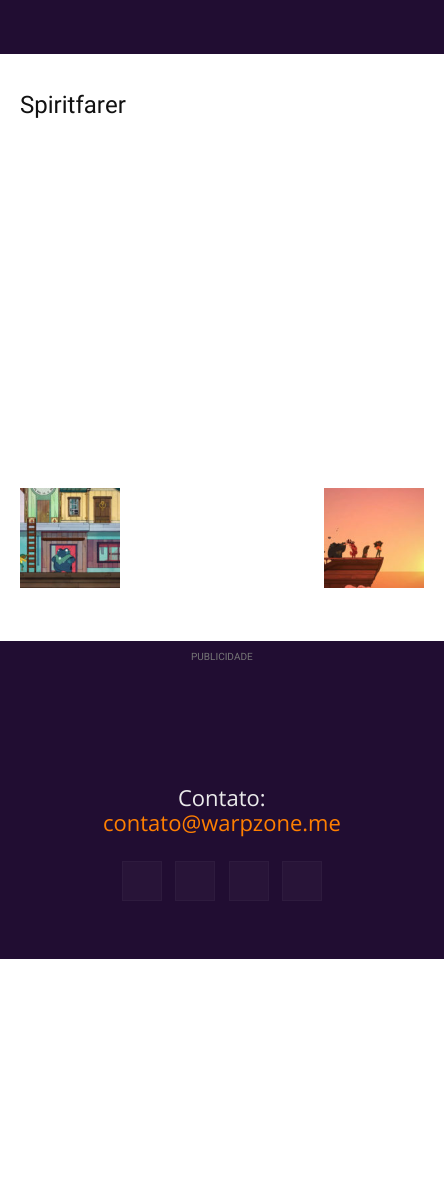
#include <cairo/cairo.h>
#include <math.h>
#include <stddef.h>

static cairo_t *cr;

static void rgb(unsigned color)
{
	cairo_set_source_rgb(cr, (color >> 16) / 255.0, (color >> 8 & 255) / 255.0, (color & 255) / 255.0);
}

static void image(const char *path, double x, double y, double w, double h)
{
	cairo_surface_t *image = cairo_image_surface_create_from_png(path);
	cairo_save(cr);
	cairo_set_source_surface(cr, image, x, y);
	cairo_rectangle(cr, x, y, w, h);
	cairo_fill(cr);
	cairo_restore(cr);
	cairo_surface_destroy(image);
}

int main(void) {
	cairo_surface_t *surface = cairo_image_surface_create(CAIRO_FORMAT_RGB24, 444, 1189);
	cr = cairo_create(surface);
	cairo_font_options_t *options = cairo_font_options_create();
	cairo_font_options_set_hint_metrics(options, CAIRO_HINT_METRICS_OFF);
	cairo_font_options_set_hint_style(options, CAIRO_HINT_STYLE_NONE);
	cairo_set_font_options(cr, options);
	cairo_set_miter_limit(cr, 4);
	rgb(0xffffff);
	cairo_paint(cr);
	rgb(0x210d32);
	cairo_rectangle(cr, 0, 0, 444, 54);
	cairo_fill(cr);
	image("img/1.png", 20, 488, 100, 100);
	image("img/2.png", 324, 488, 100, 100);
	cairo_rectangle(cr, 0, 641, 444, 318);
	cairo_fill(cr);
	rgb(0x281438);
	cairo_rectangle(cr, 122.5, 861.5, 39, 39);
	cairo_fill_preserve(cr);
	rgb(0x2e1b3e);
	cairo_set_line_width(cr, 1);
	cairo_stroke(cr);
	rgb(0x281438);
	cairo_rectangle(cr, 175.5, 861.5, 39, 39);
	cairo_fill_preserve(cr);
	rgb(0x2e1b3e);
	cairo_stroke(cr);
	rgb(0x281438);
	cairo_rectangle(cr, 229.5, 861.5, 39, 39);
	cairo_fill_preserve(cr);
	rgb(0x2e1b3e);
	cairo_stroke(cr);
	rgb(0x281438);
	cairo_rectangle(cr, 282.5, 861.5, 39, 39);
	cairo_fill_preserve(cr);
	rgb(0x2e1b3e);
	cairo_stroke(cr);
	cairo_select_font_face(cr, "Roboto", CAIRO_FONT_SLANT_NORMAL, CAIRO_FONT_WEIGHT_NORMAL);
	cairo_set_font_size(cr, 24);
	rgb(0x111111);
	cairo_move_to(cr, 20, 113);
	cairo_show_text(cr, "Spiritfarer");
	cairo_set_font_size(cr, 10);
	rgb(0x767676);
	cairo_move_to(cr, 191, 660);
	cairo_show_text(cr, "PUBLICIDADE");
	cairo_select_font_face(cr, "Open Sans", CAIRO_FONT_SLANT_NORMAL, CAIRO_FONT_WEIGHT_NORMAL);
	cairo_set_font_size(cr, 22);
	rgb(0xeaeaea);
	cairo_move_to(cr, 178, 806);
	cairo_show_text(cr, "Contato:");
	rgb(0xff7f00);
	cairo_move_to(cr, 103, 831);
	cairo_show_text(cr, "contato@warpzone.me");
	cairo_surface_write_to_png(surface, "page.png");
	cairo_font_options_destroy(options);
	cairo_destroy(cr);
	cairo_surface_destroy(surface);
	return 0;
}
